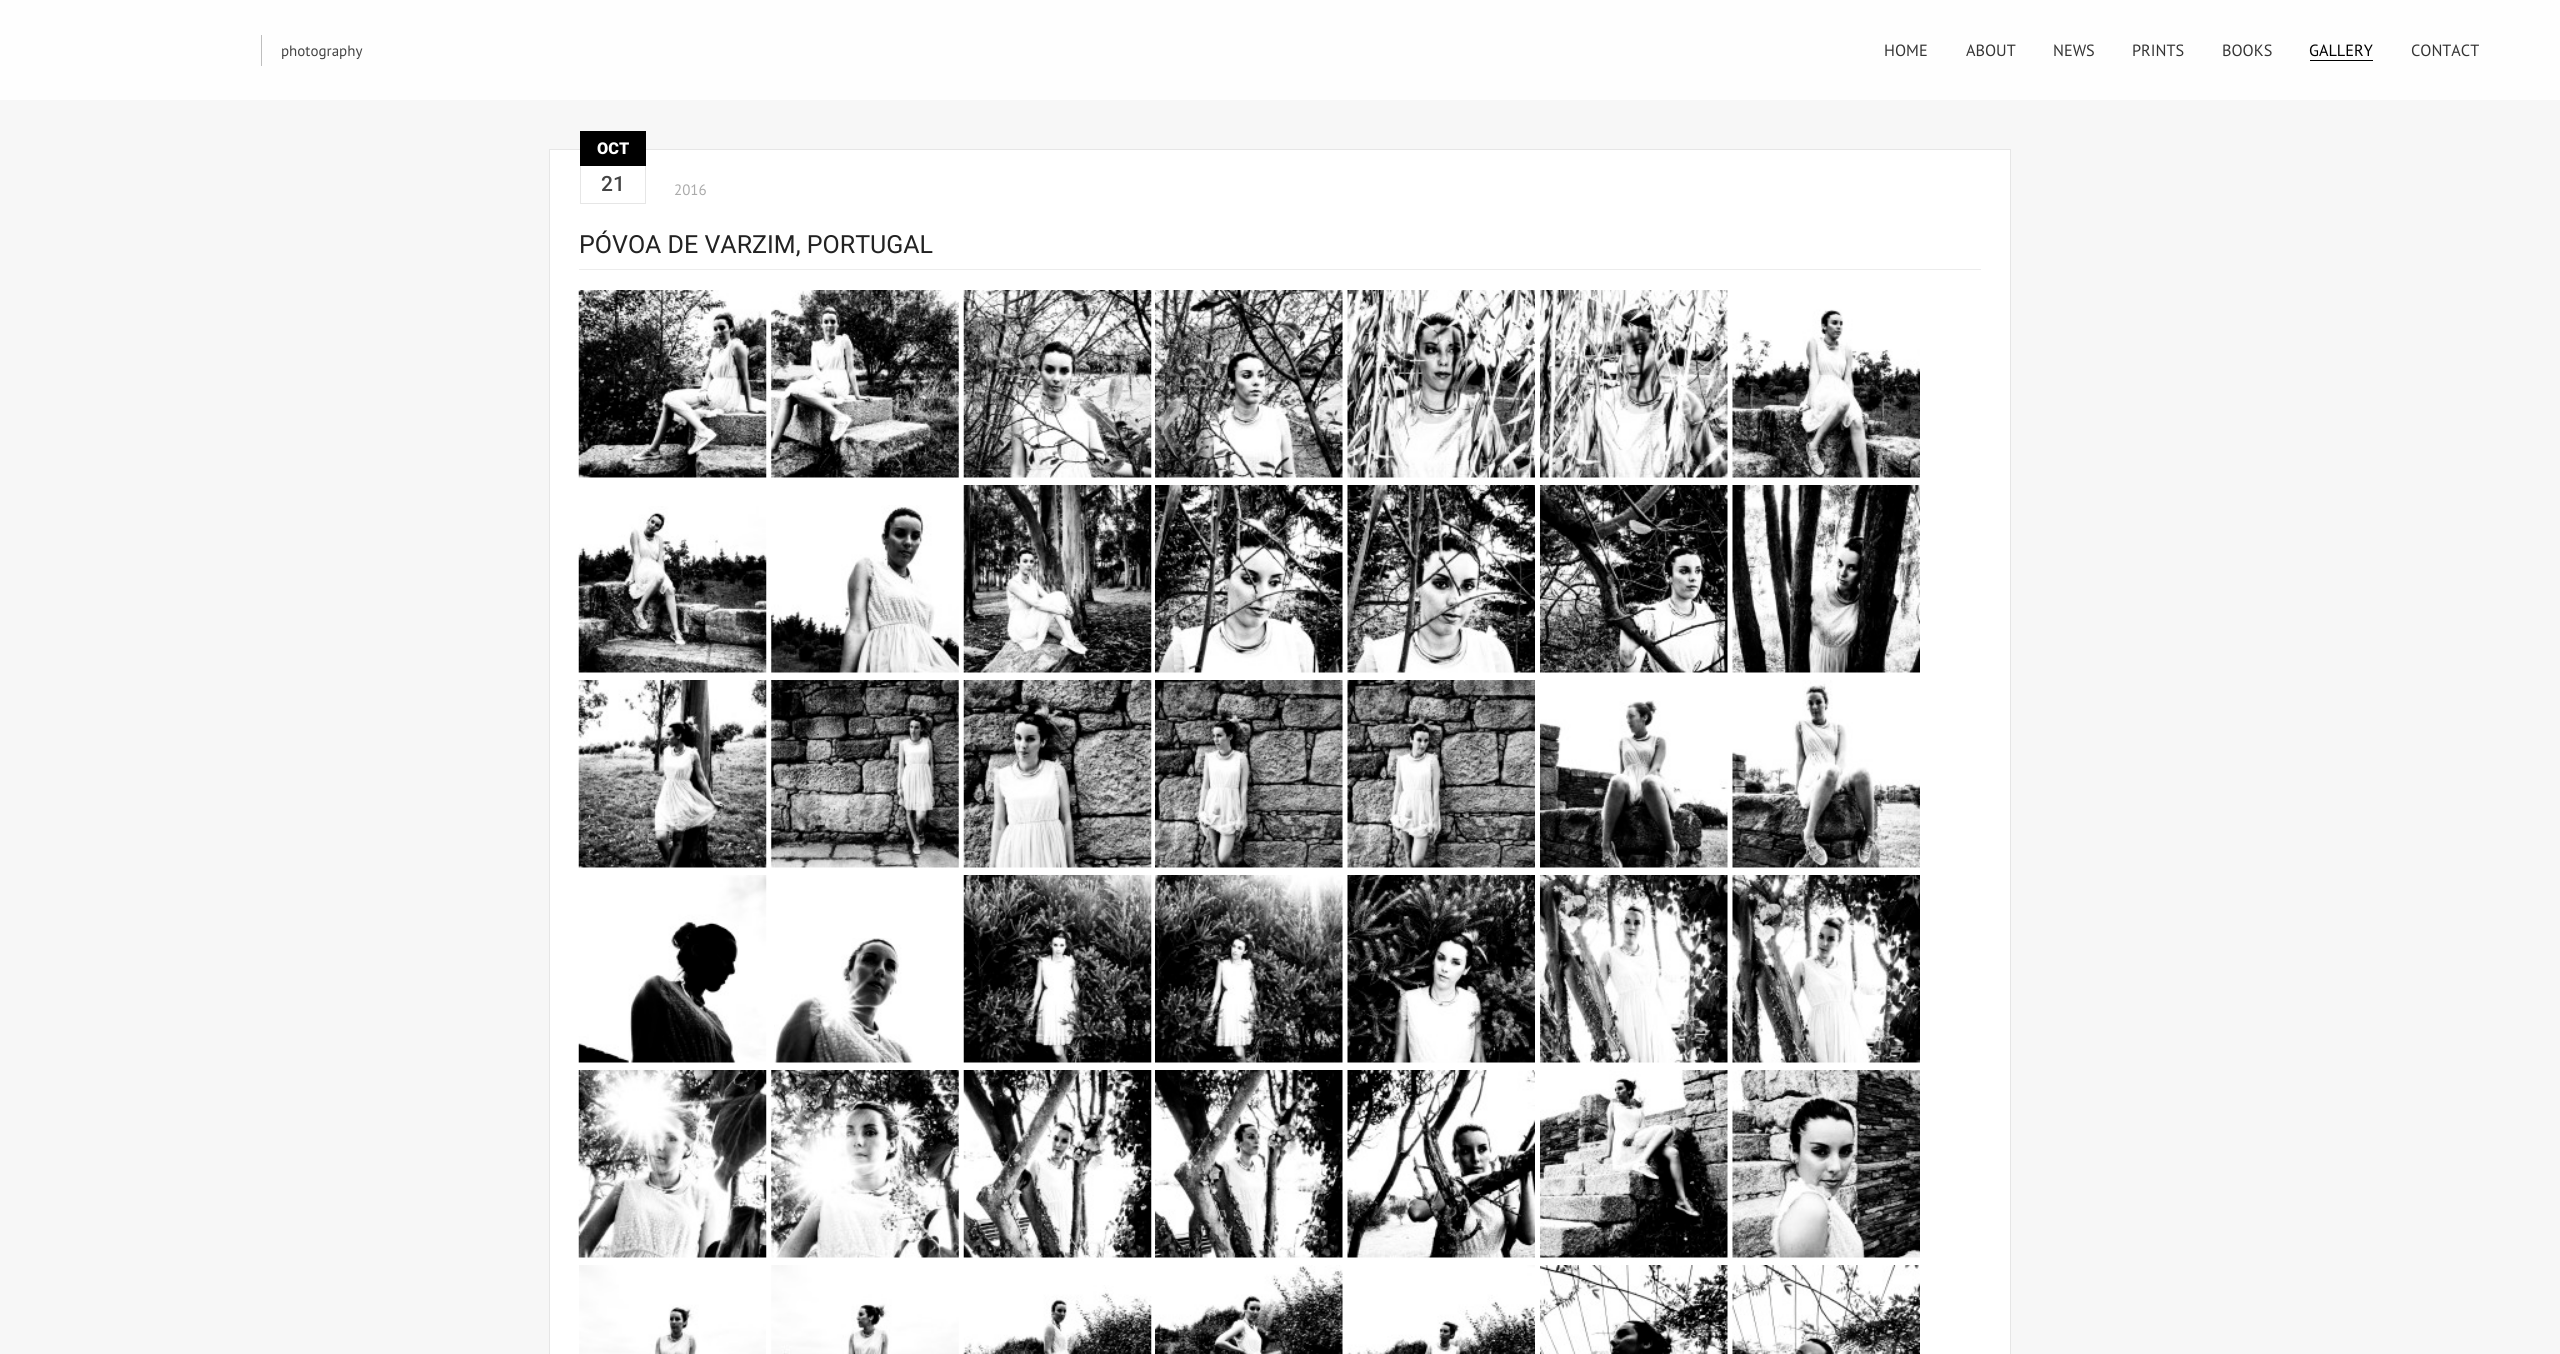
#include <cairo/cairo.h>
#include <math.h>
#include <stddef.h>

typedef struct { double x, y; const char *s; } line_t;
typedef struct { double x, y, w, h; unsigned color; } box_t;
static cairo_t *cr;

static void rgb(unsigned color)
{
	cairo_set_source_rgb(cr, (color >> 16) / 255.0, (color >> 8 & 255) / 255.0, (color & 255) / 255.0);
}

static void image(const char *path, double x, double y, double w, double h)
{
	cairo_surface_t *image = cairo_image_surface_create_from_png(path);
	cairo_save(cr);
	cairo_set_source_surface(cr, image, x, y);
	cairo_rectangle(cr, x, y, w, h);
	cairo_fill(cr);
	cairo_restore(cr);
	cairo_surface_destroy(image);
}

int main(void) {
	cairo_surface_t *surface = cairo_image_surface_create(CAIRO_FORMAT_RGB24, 2560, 1354);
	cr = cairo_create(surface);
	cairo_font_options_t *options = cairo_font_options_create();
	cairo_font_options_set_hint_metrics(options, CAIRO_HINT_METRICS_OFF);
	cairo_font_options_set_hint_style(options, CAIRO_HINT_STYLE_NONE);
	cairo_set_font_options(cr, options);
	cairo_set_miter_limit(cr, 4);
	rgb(0xf7f7f7);
	cairo_paint(cr);
	{
		static const box_t items[] = {
			{0, 0, 2560, 100, 0xfefefe},
			{261, 35, 1, 31, 0xbebebe},
			{2310, 60, 63, 1, 0x000000},
		};
		for (size_t i = 0; i < sizeof items / sizeof *items; i++) {
			rgb(items[i].color);
			cairo_rectangle(cr, items[i].x, items[i].y, items[i].w, items[i].h);
			cairo_fill(cr);
		}
	}
	rgb(0xffffff);
	cairo_rectangle(cr, 549.5, 149.5, 1461, 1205);
	cairo_fill_preserve(cr);
	rgb(0xe6e6e6);
	cairo_set_line_width(cr, 1);
	cairo_stroke(cr);
	{
		static const box_t items[] = {
			{580, 131, 66, 35, 0x000000},
			{645, 166, 1, 38, 0xe6e6e6},
			{580, 203, 66, 1, 0xe6e6e6},
			{580, 166, 1, 38, 0xe6e6e6},
			{579, 269, 1402, 1, 0xececec},
		};
		for (size_t i = 0; i < sizeof items / sizeof *items; i++) {
			rgb(items[i].color);
			cairo_rectangle(cr, items[i].x, items[i].y, items[i].w, items[i].h);
			cairo_fill(cr);
		}
	}
	image("img/1.png", 578, 290, 189, 188);
	image("img/2.png", 771, 290, 188, 188);
	image("img/3.png", 963, 290, 189, 188);
	image("img/4.png", 1155, 290, 188, 188);
	image("img/5.png", 1347, 290, 188, 188);
	image("img/6.png", 1540, 290, 188, 188);
	image("img/7.png", 1732, 309, 188, 169);
	image("img/8.png", 578, 506, 189, 167);
	image("img/9.png", 771, 505, 188, 168);
	image("img/10.png", 963, 485, 189, 188);
	image("img/11.png", 1155, 485, 188, 188);
	image("img/12.png", 1347, 485, 188, 188);
	image("img/13.png", 1540, 485, 188, 188);
	image("img/14.png", 1732, 485, 188, 188);
	image("img/15.png", 578, 680, 189, 188);
	image("img/16.png", 771, 680, 188, 188);
	image("img/17.png", 963, 680, 189, 188);
	image("img/18.png", 1155, 680, 188, 188);
	image("img/19.png", 1347, 680, 188, 188);
	image("img/20.png", 1540, 700, 188, 168);
	image("img/21.png", 1732, 680, 188, 188);
	image("img/22.png", 578, 875, 189, 188);
	image("img/23.png", 774, 938, 139, 125);
	image("img/24.png", 963, 875, 189, 188);
	image("img/25.png", 1155, 875, 188, 188);
	image("img/26.png", 1347, 875, 188, 188);
	image("img/27.png", 1540, 875, 188, 188);
	image("img/28.png", 1732, 875, 188, 188);
	image("img/29.png", 578, 1070, 189, 188);
	image("img/30.png", 771, 1070, 188, 188);
	image("img/31.png", 963, 1070, 189, 188);
	image("img/32.png", 1155, 1070, 188, 188);
	image("img/33.png", 1347, 1070, 188, 188);
	image("img/34.png", 1540, 1070, 188, 188);
	image("img/35.png", 1732, 1070, 188, 188);
	image("img/36.png", 579, 1265, 187, 89);
	image("img/37.png", 771, 1265, 188, 89);
	image("img/38.png", 963, 1285, 189, 69);
	image("img/39.png", 1155, 1265, 188, 89);
	image("img/40.png", 1347, 1265, 188, 89);
	image("img/41.png", 1540, 1265, 188, 89);
	image("img/42.png", 1732, 1265, 188, 89);
	cairo_select_font_face(cr, "PT Sans", CAIRO_FONT_SLANT_NORMAL, CAIRO_FONT_WEIGHT_NORMAL);
	cairo_set_font_size(cr, 15);
	rgb(0x444444);
	cairo_move_to(cr, 281, 56);
	cairo_show_text(cr, "photography");
	cairo_set_font_size(cr, 16.25);
	rgb(0x343434);
	{
		static const line_t items[] = {
			{1884, 56, "HOME"},
			{1966, 56, "ABOUT"},
			{2053, 56, "NEWS"},
			{2132, 56, "PRINTS"},
			{2222, 56, "BOOKS"},
		};
		for (size_t i = 0; i < sizeof items / sizeof *items; i++) {
			cairo_move_to(cr, items[i].x, items[i].y);
			cairo_show_text(cr, items[i].s);
		}
	}
	rgb(0x000000);
	cairo_move_to(cr, 2309, 56);
	cairo_show_text(cr, "GALLERY");
	rgb(0x343434);
	cairo_move_to(cr, 2411, 56);
	cairo_show_text(cr, "CONTACT");
	cairo_select_font_face(cr, "Roboto Black", CAIRO_FONT_SLANT_NORMAL, CAIRO_FONT_WEIGHT_NORMAL);
	rgb(0xffffff);
	cairo_move_to(cr, 597, 154);
	cairo_show_text(cr, "OCT");
	cairo_select_font_face(cr, "Roboto Medium", CAIRO_FONT_SLANT_NORMAL, CAIRO_FONT_WEIGHT_NORMAL);
	cairo_set_font_size(cr, 21);
	rgb(0x444444);
	cairo_move_to(cr, 601, 191);
	cairo_show_text(cr, "21");
	cairo_select_font_face(cr, "PT Sans", CAIRO_FONT_SLANT_NORMAL, CAIRO_FONT_WEIGHT_NORMAL);
	cairo_set_font_size(cr, 15);
	rgb(0xaaaaaa);
	cairo_move_to(cr, 674, 195);
	cairo_show_text(cr, "2016");
	cairo_select_font_face(cr, "Roboto", CAIRO_FONT_SLANT_NORMAL, CAIRO_FONT_WEIGHT_NORMAL);
	cairo_set_font_size(cr, 25);
	rgb(0x222222);
	cairo_move_to(cr, 579, 253);
	cairo_show_text(cr, "PÓVOA DE VARZIM, PORTUGAL");
	cairo_surface_write_to_png(surface, "page.png");
	cairo_font_options_destroy(options);
	cairo_destroy(cr);
	cairo_surface_destroy(surface);
	return 0;
}
